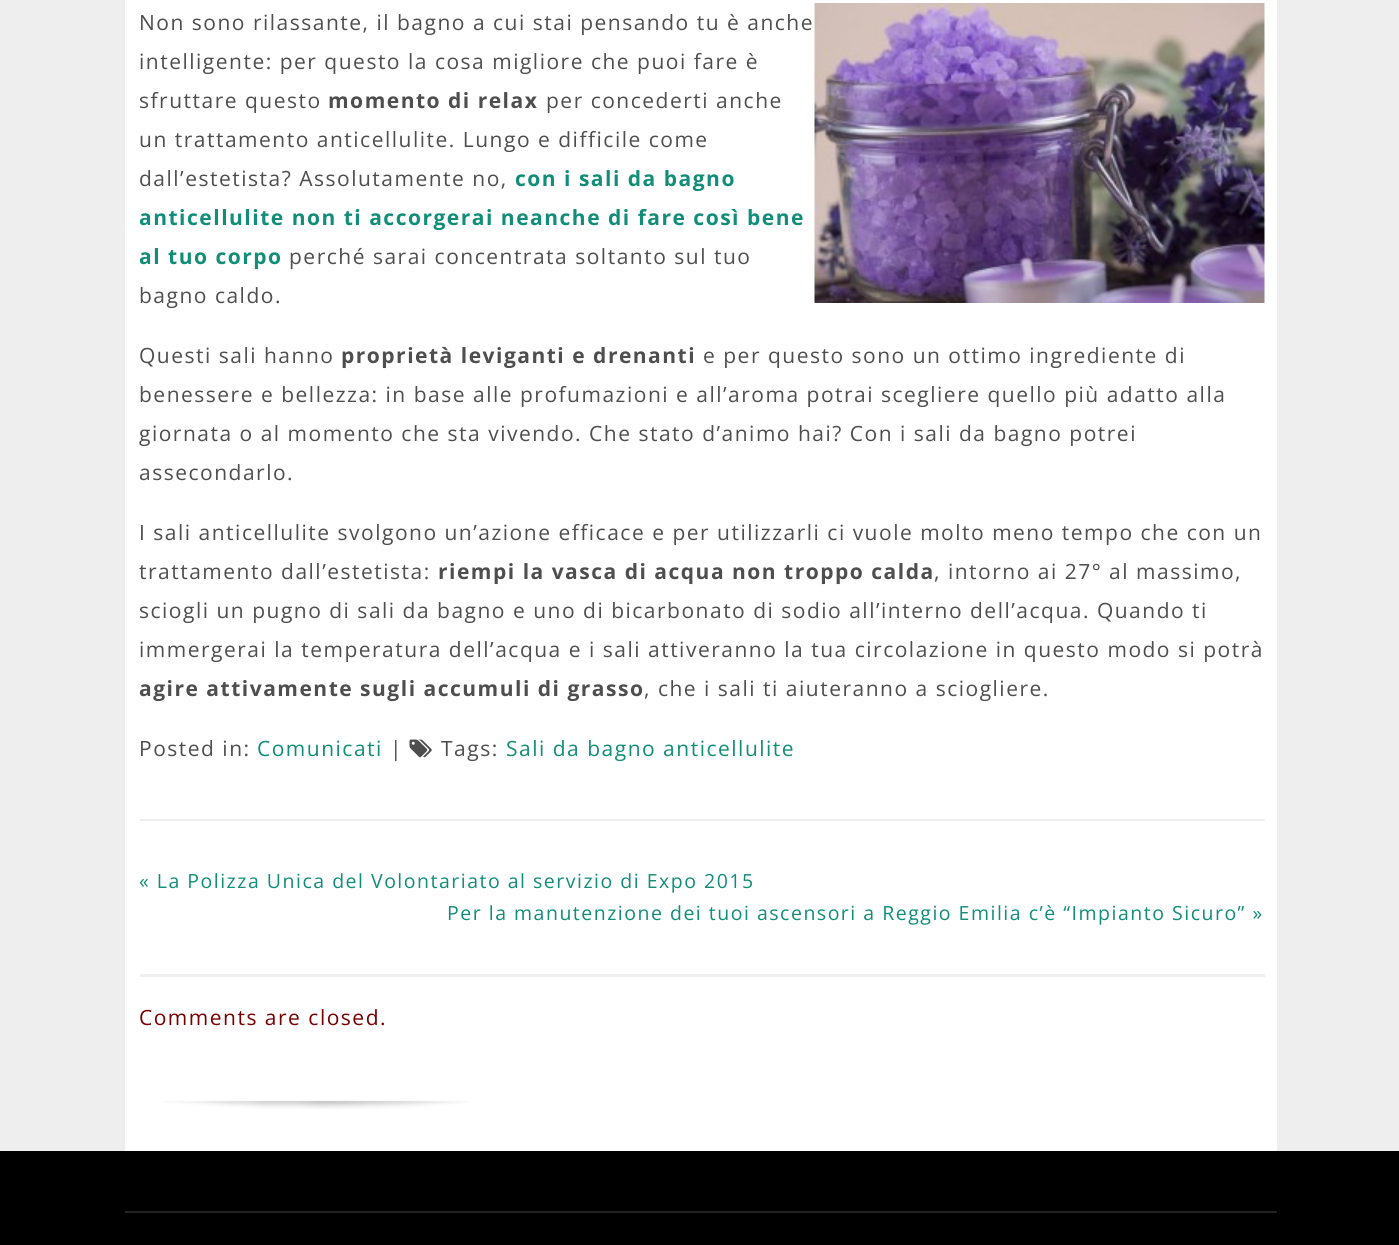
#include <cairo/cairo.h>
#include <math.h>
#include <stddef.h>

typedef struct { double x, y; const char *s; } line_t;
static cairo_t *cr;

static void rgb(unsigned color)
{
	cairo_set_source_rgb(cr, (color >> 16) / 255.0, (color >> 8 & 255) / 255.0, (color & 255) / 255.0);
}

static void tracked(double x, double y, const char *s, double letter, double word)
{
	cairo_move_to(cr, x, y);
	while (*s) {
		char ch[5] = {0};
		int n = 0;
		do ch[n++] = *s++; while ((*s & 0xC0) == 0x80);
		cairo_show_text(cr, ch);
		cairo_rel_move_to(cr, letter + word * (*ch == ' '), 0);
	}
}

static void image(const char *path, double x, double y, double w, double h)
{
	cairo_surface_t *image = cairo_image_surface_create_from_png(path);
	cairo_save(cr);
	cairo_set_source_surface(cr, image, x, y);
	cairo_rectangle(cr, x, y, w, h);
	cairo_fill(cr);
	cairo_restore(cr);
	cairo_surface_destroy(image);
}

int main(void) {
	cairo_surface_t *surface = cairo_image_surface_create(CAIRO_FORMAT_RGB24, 1399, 1245);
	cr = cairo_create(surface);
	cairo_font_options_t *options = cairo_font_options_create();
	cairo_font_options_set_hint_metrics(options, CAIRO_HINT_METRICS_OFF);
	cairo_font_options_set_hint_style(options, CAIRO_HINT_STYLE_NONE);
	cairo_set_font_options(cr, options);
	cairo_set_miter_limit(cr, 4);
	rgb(0xeeeeee);
	cairo_paint(cr);
	rgb(0xffffff);
	cairo_rectangle(cr, 125, 0, 1152, 1151);
	cairo_fill(cr);
	rgb(0xeeeeee);
	cairo_rectangle(cr, 140, 819, 1125, 2);
	cairo_fill(cr);
	image("img/1.png", 814, 3, 451, 300);
	image("img/2.png", 409, 739, 23, 19);
	cairo_rectangle(cr, 140, 974, 1125, 3);
	cairo_fill(cr);
	image("img/3.png", 163, 1100, 305, 9);
	rgb(0x000000);
	cairo_rectangle(cr, 0, 1151, 1399, 94);
	cairo_fill(cr);
	rgb(0x222222);
	cairo_rectangle(cr, 125, 1211, 1152, 2);
	cairo_fill(cr);
	cairo_select_font_face(cr, "Open Sans", CAIRO_FONT_SLANT_NORMAL, CAIRO_FONT_WEIGHT_NORMAL);
	cairo_set_font_size(cr, 21);
	rgb(0x4e4e4e);
	{
		static const line_t items[] = {
			{139, 30, "Non sono rilassante, il bagno a cui stai pensando tu è anche"},
			{139, 69, "intelligente: per questo la cosa migliore che puoi fare è"},
			{139, 108, "sfruttare questo"},
		};
		for (size_t i = 0; i < sizeof items / sizeof *items; i++) {
			tracked(items[i].x, items[i].y, items[i].s, 1.5, 0);
		}
	}
	cairo_select_font_face(cr, "Open Sans", CAIRO_FONT_SLANT_NORMAL, CAIRO_FONT_WEIGHT_BOLD);
	tracked(328, 108, "momento di relax", 1.5, 0);
	cairo_select_font_face(cr, "Open Sans", CAIRO_FONT_SLANT_NORMAL, CAIRO_FONT_WEIGHT_NORMAL);
	{
		static const line_t items[] = {
			{546, 108, "per concederti anche"},
			{139, 147, "un trattamento anticellulite. Lungo e difficile come"},
			{139, 186, "dall’estetista? Assolutamente no,"},
		};
		for (size_t i = 0; i < sizeof items / sizeof *items; i++) {
			tracked(items[i].x, items[i].y, items[i].s, 1.5, 0);
		}
	}
	cairo_select_font_face(cr, "Open Sans", CAIRO_FONT_SLANT_NORMAL, CAIRO_FONT_WEIGHT_BOLD);
	rgb(0x118d78);
	{
		static const line_t items[] = {
			{515, 186, "con i sali da bagno"},
			{139, 225, "anticellulite non ti accorgerai neanche di fare così bene"},
			{139, 264, "al tuo corpo"},
		};
		for (size_t i = 0; i < sizeof items / sizeof *items; i++) {
			tracked(items[i].x, items[i].y, items[i].s, 1.5, 0);
		}
	}
	cairo_select_font_face(cr, "Open Sans", CAIRO_FONT_SLANT_NORMAL, CAIRO_FONT_WEIGHT_NORMAL);
	rgb(0x4e4e4e);
	{
		static const line_t items[] = {
			{289, 264, "perché sarai concentrata soltanto sul tuo"},
			{139, 303, "bagno caldo."},
			{139, 363, "Questi sali hanno"},
		};
		for (size_t i = 0; i < sizeof items / sizeof *items; i++) {
			tracked(items[i].x, items[i].y, items[i].s, 1.5, 0);
		}
	}
	cairo_select_font_face(cr, "Open Sans", CAIRO_FONT_SLANT_NORMAL, CAIRO_FONT_WEIGHT_BOLD);
	tracked(341, 363, "proprietà leviganti e drenanti", 1.5, 0);
	cairo_select_font_face(cr, "Open Sans", CAIRO_FONT_SLANT_NORMAL, CAIRO_FONT_WEIGHT_NORMAL);
	{
		static const line_t items[] = {
			{703, 363, "e per questo sono un ottimo ingrediente di"},
			{139, 402, "benessere e bellezza: in base alle profumazioni e all’aroma potrai scegliere quello più adatto alla"},
			{139, 441, "giornata o al momento che sta vivendo. Che stato d’animo hai? Con i sali da bagno potrei"},
			{139, 480, "assecondarlo."},
			{139, 540, "I sali anticellulite svolgono un’azione efficace e per utilizzarli ci vuole molto meno tempo che con un"},
			{139, 579, "trattamento dall’estetista:"},
		};
		for (size_t i = 0; i < sizeof items / sizeof *items; i++) {
			tracked(items[i].x, items[i].y, items[i].s, 1.5, 0);
		}
	}
	cairo_select_font_face(cr, "Open Sans", CAIRO_FONT_SLANT_NORMAL, CAIRO_FONT_WEIGHT_BOLD);
	tracked(438, 579, "riempi la vasca di acqua non troppo calda", 1.5, 0);
	cairo_select_font_face(cr, "Open Sans", CAIRO_FONT_SLANT_NORMAL, CAIRO_FONT_WEIGHT_NORMAL);
	{
		static const line_t items[] = {
			{934, 579, ", intorno ai 27° al massimo,"},
			{139, 618, "sciogli un pugno di sali da bagno e uno di bicarbonato di sodio all’interno dell’acqua. Quando ti"},
			{139, 657, "immergerai la temperatura dell’acqua e i sali attiveranno la tua circolazione in questo modo si potrà"},
		};
		for (size_t i = 0; i < sizeof items / sizeof *items; i++) {
			tracked(items[i].x, items[i].y, items[i].s, 1.5, 0);
		}
	}
	cairo_select_font_face(cr, "Open Sans", CAIRO_FONT_SLANT_NORMAL, CAIRO_FONT_WEIGHT_BOLD);
	tracked(139, 696, "agire attivamente sugli accumuli di grasso", 1.5, 0);
	cairo_select_font_face(cr, "Open Sans", CAIRO_FONT_SLANT_NORMAL, CAIRO_FONT_WEIGHT_NORMAL);
	tracked(644, 696, ", che i sali ti aiuteranno a sciogliere.", 1.5, 0);
	tracked(139, 756, "Posted in:", 1.5, 0);
	rgb(0x118d78);
	tracked(257, 756, "Comunicati", 1.5, 0);
	rgb(0x4e4e4e);
	tracked(390, 756, "|", 1.5, 0);
	tracked(441, 756, "Tags:", 1.5, 0);
	rgb(0x118d78);
	tracked(506, 756, "Sali da bagno anticellulite", 1.5, 0);
	cairo_set_font_size(cr, 19.5);
	tracked(139, 888, "« La Polizza Unica del Volontariato al servizio di Expo 2015", 1.5, 0);
	tracked(447, 920, "Per la manutenzione dei tuoi ascensori a Reggio Emilia c’è “Impianto Sicuro” »", 1.5, 0);
	cairo_set_font_size(cr, 21);
	rgb(0x770000);
	tracked(139, 1025, "Comments are closed.", 1.5, 0);
	cairo_surface_write_to_png(surface, "page.png");
	cairo_font_options_destroy(options);
	cairo_destroy(cr);
	cairo_surface_destroy(surface);
	return 0;
}
